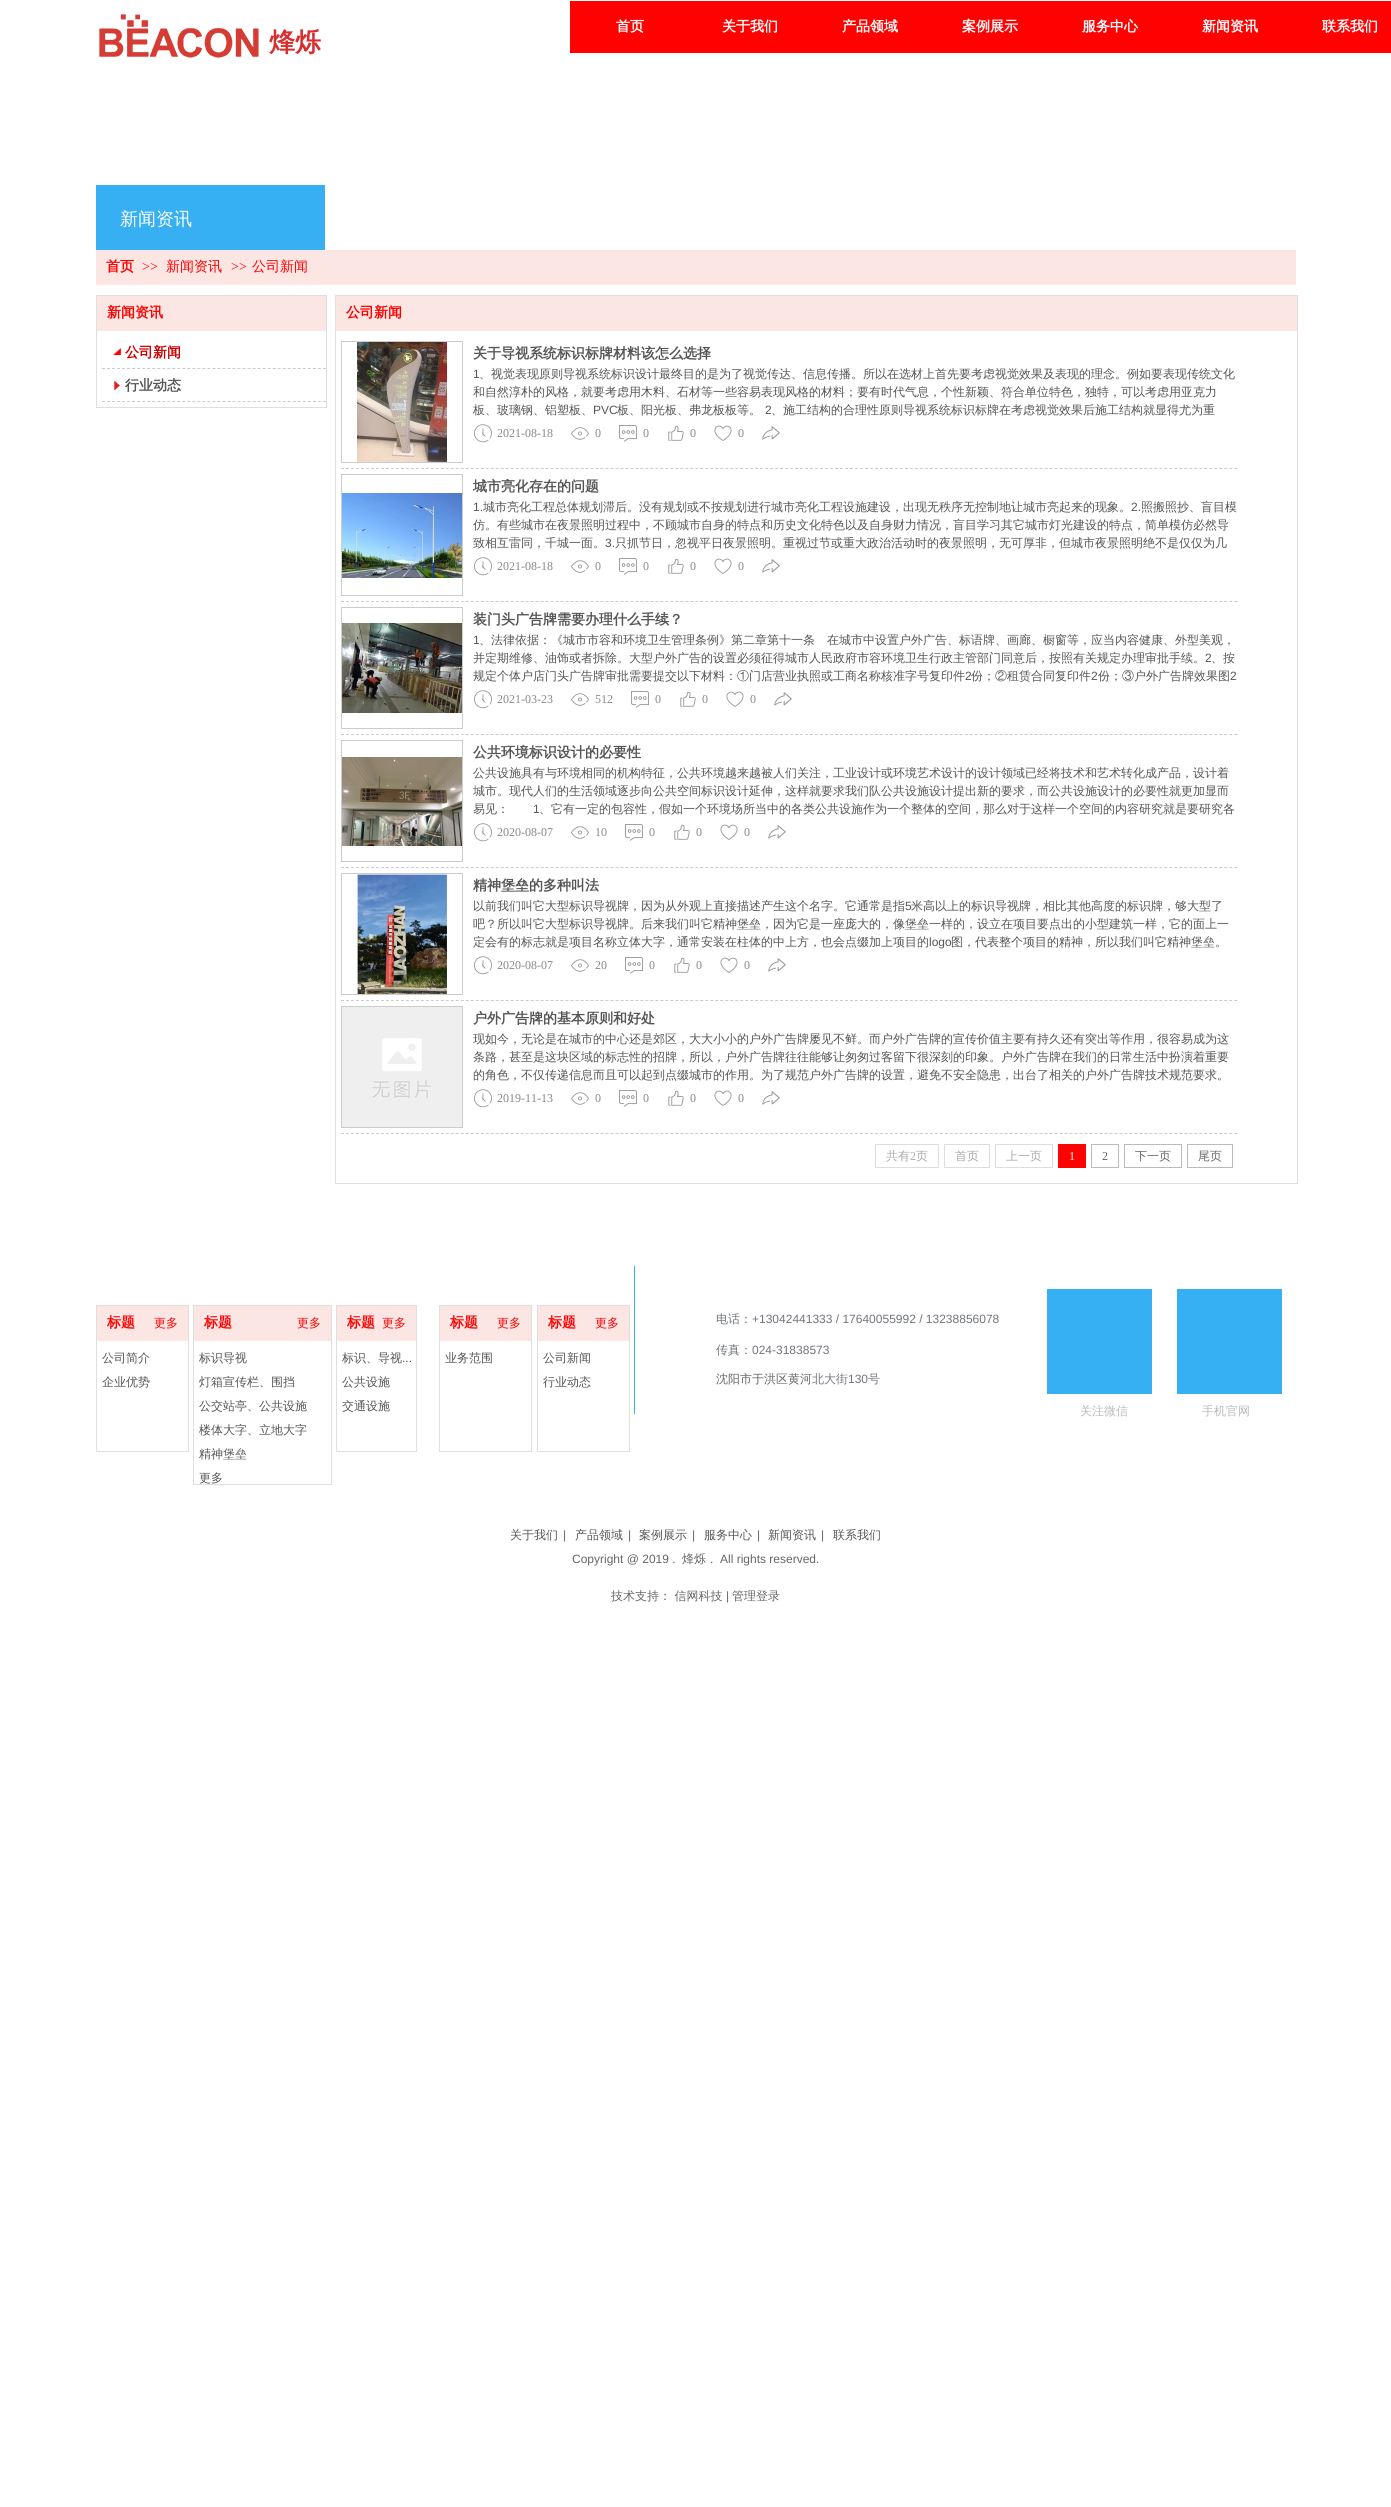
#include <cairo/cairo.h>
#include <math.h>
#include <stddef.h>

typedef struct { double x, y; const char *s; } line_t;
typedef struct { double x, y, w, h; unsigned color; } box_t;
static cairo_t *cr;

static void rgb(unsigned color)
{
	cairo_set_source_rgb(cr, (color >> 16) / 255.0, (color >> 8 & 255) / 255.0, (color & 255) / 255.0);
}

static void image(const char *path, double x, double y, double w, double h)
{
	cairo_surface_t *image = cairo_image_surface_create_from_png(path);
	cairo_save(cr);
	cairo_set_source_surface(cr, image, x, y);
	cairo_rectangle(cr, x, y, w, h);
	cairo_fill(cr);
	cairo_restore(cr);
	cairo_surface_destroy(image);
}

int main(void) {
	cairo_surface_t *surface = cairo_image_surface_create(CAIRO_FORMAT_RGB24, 1391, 2507);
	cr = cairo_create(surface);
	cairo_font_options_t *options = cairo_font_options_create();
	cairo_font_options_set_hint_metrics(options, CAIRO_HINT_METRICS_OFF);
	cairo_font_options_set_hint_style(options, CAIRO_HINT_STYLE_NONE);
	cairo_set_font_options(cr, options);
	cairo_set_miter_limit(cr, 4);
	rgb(0xffffff);
	cairo_paint(cr);
	image("img/1.png", 99, 14, 160, 44);
	{
		static const box_t items[] = {
			{570, 1, 821, 52, 0xff0101},
			{96, 185, 229, 65, 0x36b0f3},
			{96, 250, 1200, 35, 0xfbe6e3},
		};
		for (size_t i = 0; i < sizeof items / sizeof *items; i++) {
			rgb(items[i].color);
			cairo_rectangle(cr, items[i].x, items[i].y, items[i].w, items[i].h);
			cairo_fill(cr);
		}
	}
	cairo_rectangle(cr, 96.5, 295.5, 230, 112);
	rgb(0xe0dfdd);
	cairo_set_line_width(cr, 1);
	cairo_stroke(cr);
	rgb(0xfbe6e3);
	cairo_rectangle(cr, 97, 296, 229, 35);
	cairo_fill(cr);
	cairo_save(cr);
	cairo_rectangle(cr, 102, 336, 224, 33);
	cairo_clip(cr);
	cairo_new_path(cr);
	cairo_move_to(cr, 102, 368.5);
	cairo_line_to(cr, 331, 368.5);
	rgb(0xcccccc);
	cairo_set_dash(cr, (double[]){3, 2.02}, 2, 0);
	cairo_stroke(cr);
	cairo_restore(cr);
	image("img/2.png", 113, 348, 8, 7);
	cairo_save(cr);
	cairo_rectangle(cr, 102, 369, 224, 33);
	cairo_clip(cr);
	cairo_new_path(cr);
	cairo_move_to(cr, 102, 401.5);
	cairo_line_to(cr, 331, 401.5);
	rgb(0xcccccc);
	cairo_set_dash(cr, (double[]){3, 2.02}, 2, 0);
	cairo_stroke(cr);
	cairo_restore(cr);
	image("img/3.png", 114, 381, 6, 9);
	cairo_rectangle(cr, 335.5, 295.5, 962, 888);
	rgb(0xe0dfdd);
	cairo_stroke(cr);
	rgb(0xfbe6e3);
	cairo_rectangle(cr, 336, 296, 961, 35);
	cairo_fill(cr);
	cairo_new_path(cr);
	cairo_move_to(cr, 341, 468.5);
	cairo_line_to(cr, 1238, 468.5);
	rgb(0xcccccc);
	cairo_set_dash(cr, (double[]){3, 1.99}, 2, 0);
	cairo_stroke(cr);
	cairo_rectangle(cr, 341.5, 341.5, 121, 121);
	cairo_set_dash(cr, NULL, 0, 0);
	cairo_stroke(cr);
	image("img/4.png", 357, 342, 90, 120);
	image("img/5.png", 474, 424, 18, 19);
	image("img/6.png", 571, 427, 18, 13);
	image("img/7.png", 619, 425, 18, 17);
	image("img/8.png", 668, 425, 16, 16);
	image("img/9.png", 714, 425, 18, 16);
	image("img/10.png", 762, 426, 18, 14);
	cairo_new_path(cr);
	cairo_move_to(cr, 341, 601.5);
	cairo_line_to(cr, 1238, 601.5);
	cairo_set_dash(cr, (double[]){3, 1.99}, 2, 0);
	cairo_stroke(cr);
	cairo_rectangle(cr, 341.5, 474.5, 121, 121);
	cairo_set_dash(cr, NULL, 0, 0);
	cairo_stroke(cr);
	image("img/11.png", 342, 493, 120, 85);
	image("img/5.png", 474, 557, 18, 19);
	image("img/6.png", 571, 560, 18, 13);
	image("img/7.png", 619, 558, 18, 17);
	image("img/8.png", 668, 558, 16, 16);
	image("img/9.png", 714, 558, 18, 16);
	image("img/10.png", 762, 559, 18, 14);
	cairo_new_path(cr);
	cairo_move_to(cr, 341, 734.5);
	cairo_line_to(cr, 1238, 734.5);
	cairo_set_dash(cr, (double[]){3, 1.99}, 2, 0);
	cairo_stroke(cr);
	cairo_rectangle(cr, 341.5, 607.5, 121, 121);
	cairo_set_dash(cr, NULL, 0, 0);
	cairo_stroke(cr);
	image("img/12.png", 342, 623, 120, 90);
	image("img/5.png", 474, 690, 18, 19);
	image("img/6.png", 571, 693, 18, 13);
	image("img/7.png", 631, 691, 18, 17);
	image("img/8.png", 680, 691, 16, 16);
	image("img/9.png", 726, 691, 18, 16);
	image("img/10.png", 774, 692, 18, 14);
	cairo_new_path(cr);
	cairo_move_to(cr, 341, 867.5);
	cairo_line_to(cr, 1238, 867.5);
	cairo_set_dash(cr, (double[]){3, 1.99}, 2, 0);
	cairo_stroke(cr);
	cairo_rectangle(cr, 341.5, 740.5, 121, 121);
	cairo_set_dash(cr, NULL, 0, 0);
	cairo_stroke(cr);
	image("img/13.png", 342, 757, 120, 89);
	image("img/5.png", 474, 823, 18, 19);
	image("img/6.png", 571, 826, 18, 13);
	image("img/7.png", 625, 824, 18, 17);
	image("img/8.png", 674, 824, 16, 16);
	image("img/9.png", 720, 824, 18, 16);
	image("img/10.png", 768, 825, 18, 14);
	cairo_new_path(cr);
	cairo_move_to(cr, 341, 1000.5);
	cairo_line_to(cr, 1238, 1000.5);
	cairo_set_dash(cr, (double[]){3, 1.99}, 2, 0);
	cairo_stroke(cr);
	cairo_rectangle(cr, 341.5, 873.5, 121, 121);
	cairo_set_dash(cr, NULL, 0, 0);
	cairo_stroke(cr);
	image("img/14.png", 357, 874, 90, 120);
	image("img/5.png", 474, 956, 18, 19);
	image("img/6.png", 571, 959, 18, 13);
	image("img/7.png", 625, 957, 18, 17);
	image("img/8.png", 674, 957, 16, 16);
	image("img/9.png", 720, 957, 18, 16);
	image("img/10.png", 768, 958, 18, 14);
	cairo_new_path(cr);
	cairo_move_to(cr, 341, 1133.5);
	cairo_line_to(cr, 1238, 1133.5);
	cairo_set_dash(cr, (double[]){3, 1.99}, 2, 0);
	cairo_stroke(cr);
	cairo_rectangle(cr, 341.5, 1006.5, 121, 121);
	cairo_set_dash(cr, NULL, 0, 0);
	cairo_stroke(cr);
	image("img/15.png", 342, 1007, 120, 120);
	image("img/5.png", 474, 1089, 18, 19);
	image("img/6.png", 571, 1092, 18, 13);
	image("img/7.png", 619, 1090, 18, 17);
	image("img/8.png", 668, 1090, 16, 16);
	image("img/9.png", 714, 1090, 18, 16);
	image("img/10.png", 762, 1091, 18, 14);
	cairo_rectangle(cr, 875.5, 1144.5, 63, 23);
	rgb(0xdddddd);
	cairo_stroke(cr);
	cairo_rectangle(cr, 944.5, 1144.5, 45, 23);
	cairo_stroke(cr);
	cairo_rectangle(cr, 995.5, 1144.5, 57, 23);
	cairo_stroke(cr);
	rgb(0xff0101);
	cairo_rectangle(cr, 1058, 1144, 28, 24);
	cairo_fill(cr);
	cairo_rectangle(cr, 1091.5, 1144.5, 27, 23);
	rgb(0xbbbbbb);
	cairo_stroke(cr);
	cairo_rectangle(cr, 1124.5, 1144.5, 57, 23);
	cairo_stroke(cr);
	cairo_rectangle(cr, 1187.5, 1144.5, 45, 23);
	cairo_stroke(cr);
	cairo_rectangle(cr, 96.5, 1305.5, 92, 146);
	rgb(0xe0dfdd);
	cairo_stroke(cr);
	rgb(0xfbe6e3);
	cairo_rectangle(cr, 97, 1306, 91, 35);
	cairo_fill(cr);
	cairo_rectangle(cr, 193.5, 1305.5, 138, 179);
	rgb(0xe0dfdd);
	cairo_stroke(cr);
	rgb(0xfbe6e3);
	cairo_rectangle(cr, 194, 1306, 137, 35);
	cairo_fill(cr);
	cairo_rectangle(cr, 336.5, 1305.5, 80, 146);
	rgb(0xe0dfdd);
	cairo_stroke(cr);
	rgb(0xfbe6e3);
	cairo_rectangle(cr, 337, 1306, 79, 35);
	cairo_fill(cr);
	cairo_rectangle(cr, 439.5, 1305.5, 92, 146);
	rgb(0xe0dfdd);
	cairo_stroke(cr);
	rgb(0xfbe6e3);
	cairo_rectangle(cr, 440, 1306, 91, 35);
	cairo_fill(cr);
	cairo_rectangle(cr, 537.5, 1305.5, 92, 146);
	rgb(0xe0dfdd);
	cairo_stroke(cr);
	{
		static const box_t items[] = {
			{538, 1306, 91, 35, 0xfbe6e3},
			{634, 1266, 1, 148, 0x36b0f3},
			{1047, 1289, 105, 105, 0x36b0f3},
			{1177, 1289, 105, 105, 0x36b0f3},
		};
		for (size_t i = 0; i < sizeof items / sizeof *items; i++) {
			rgb(items[i].color);
			cairo_rectangle(cr, items[i].x, items[i].y, items[i].w, items[i].h);
			cairo_fill(cr);
		}
	}
	cairo_select_font_face(cr, "WenQuanYi Zen Hei", CAIRO_FONT_SLANT_NORMAL, CAIRO_FONT_WEIGHT_BOLD);
	cairo_set_font_size(cr, 14);
	rgb(0xffffff);
	{
		static const line_t items[] = {
			{616, 31, "首页"},
			{722, 31, "关于我们"},
			{842, 31, "产品领域"},
			{962, 31, "案例展示"},
			{1082, 31, "服务中心"},
			{1202, 31, "新闻资讯"},
			{1322, 31, "联系我们"},
		};
		for (size_t i = 0; i < sizeof items / sizeof *items; i++) {
			cairo_move_to(cr, items[i].x, items[i].y);
			cairo_show_text(cr, items[i].s);
		}
	}
	cairo_set_font_size(cr, 26);
	rgb(0xd82e2e);
	cairo_move_to(cr, 269, 51);
	cairo_show_text(cr, "烽烁");
	cairo_select_font_face(cr, "WenQuanYi Zen Hei Medium", CAIRO_FONT_SLANT_NORMAL, CAIRO_FONT_WEIGHT_NORMAL);
	cairo_set_font_size(cr, 18);
	rgb(0xffffff);
	cairo_move_to(cr, 120, 225);
	cairo_show_text(cr, "新闻资讯");
	cairo_select_font_face(cr, "WenQuanYi Zen Hei", CAIRO_FONT_SLANT_NORMAL, CAIRO_FONT_WEIGHT_BOLD);
	cairo_set_font_size(cr, 14);
	rgb(0xff0101);
	cairo_move_to(cr, 106, 271);
	cairo_show_text(cr, "首页");
	cairo_select_font_face(cr, "Liberation Serif", CAIRO_FONT_SLANT_NORMAL, CAIRO_FONT_WEIGHT_NORMAL);
	cairo_move_to(cr, 142, 271);
	cairo_show_text(cr, ">>");
	cairo_select_font_face(cr, "WenQuanYi Zen Hei Medium", CAIRO_FONT_SLANT_NORMAL, CAIRO_FONT_WEIGHT_NORMAL);
	cairo_move_to(cr, 166, 271);
	cairo_show_text(cr, "新闻资讯");
	cairo_select_font_face(cr, "Liberation Serif", CAIRO_FONT_SLANT_NORMAL, CAIRO_FONT_WEIGHT_NORMAL);
	cairo_move_to(cr, 231, 271);
	cairo_show_text(cr, ">>");
	cairo_select_font_face(cr, "WenQuanYi Zen Hei Medium", CAIRO_FONT_SLANT_NORMAL, CAIRO_FONT_WEIGHT_NORMAL);
	cairo_move_to(cr, 252, 271);
	cairo_show_text(cr, "公司新闻");
	cairo_select_font_face(cr, "WenQuanYi Zen Hei", CAIRO_FONT_SLANT_NORMAL, CAIRO_FONT_WEIGHT_BOLD);
	cairo_move_to(cr, 107, 317);
	cairo_show_text(cr, "新闻资讯");
	rgb(0xcc0000);
	cairo_move_to(cr, 125, 357);
	cairo_show_text(cr, "公司新闻");
	rgb(0x555555);
	cairo_move_to(cr, 125, 390);
	cairo_show_text(cr, "行业动态");
	rgb(0xff0101);
	cairo_move_to(cr, 346, 317);
	cairo_show_text(cr, "公司新闻");
	rgb(0x555555);
	cairo_move_to(cr, 473, 358);
	cairo_show_text(cr, "关于导视系统标识标牌材料该怎么选择");
	cairo_select_font_face(cr, "Liberation Sans", CAIRO_FONT_SLANT_NORMAL, CAIRO_FONT_WEIGHT_NORMAL);
	cairo_set_font_size(cr, 12);
	cairo_move_to(cr, 473, 378);
	cairo_show_text(cr, "1");
	cairo_select_font_face(cr, "WenQuanYi Zen Hei Medium", CAIRO_FONT_SLANT_NORMAL, CAIRO_FONT_WEIGHT_NORMAL);
	cairo_move_to(cr, 479, 378);
	cairo_show_text(cr, "、视觉表现原则导视系统标识设计最终目的是为了视觉传达、信息传播。所以在选材上首先要考虑视觉效果及表现的理念。例如要表现传统文化");
	cairo_move_to(cr, 473, 396);
	cairo_show_text(cr, "和自然淳朴的风格，就要考虑用木料、石材等一些容易表现风格的材料；要有时代气息，个性新颖、符合单位特色，独特，可以考虑用亚克力");
	cairo_save(cr);
	cairo_rectangle(cr, 473, 365, 765, 54);
	cairo_clip(cr);
	cairo_move_to(cr, 473, 414);
	cairo_show_text(cr, "板、玻璃钢、铝塑板、");
	cairo_restore(cr);
	cairo_select_font_face(cr, "Liberation Sans", CAIRO_FONT_SLANT_NORMAL, CAIRO_FONT_WEIGHT_NORMAL);
	cairo_move_to(cr, 593, 414);
	cairo_show_text(cr, "PVC");
	cairo_select_font_face(cr, "WenQuanYi Zen Hei Medium", CAIRO_FONT_SLANT_NORMAL, CAIRO_FONT_WEIGHT_NORMAL);
	cairo_move_to(cr, 617, 414);
	cairo_show_text(cr, "板、阳光板、弗龙板板等。");
	cairo_select_font_face(cr, "Liberation Sans", CAIRO_FONT_SLANT_NORMAL, CAIRO_FONT_WEIGHT_NORMAL);
	cairo_move_to(cr, 765, 414);
	cairo_show_text(cr, "2");
	cairo_select_font_face(cr, "WenQuanYi Zen Hei Medium", CAIRO_FONT_SLANT_NORMAL, CAIRO_FONT_WEIGHT_NORMAL);
	cairo_move_to(cr, 771, 414);
	cairo_show_text(cr, "、施工结构的合理性原则导视系统标识标牌在考虑视觉效果后施工结构就显得尤为重");
	cairo_select_font_face(cr, "Liberation Serif", CAIRO_FONT_SLANT_NORMAL, CAIRO_FONT_WEIGHT_NORMAL);
	rgb(0x888888);
	{
		static const line_t items[] = {
			{497, 437, "2021-08-18"},
			{595, 437, "0"},
			{643, 437, "0"},
			{690, 437, "0"},
			{738, 437, "0"},
		};
		for (size_t i = 0; i < sizeof items / sizeof *items; i++) {
			cairo_move_to(cr, items[i].x, items[i].y);
			cairo_show_text(cr, items[i].s);
		}
	}
	cairo_save(cr);
	cairo_rectangle(cr, 473, 474, 765, 24);
	cairo_clip(cr);
	cairo_select_font_face(cr, "WenQuanYi Zen Hei", CAIRO_FONT_SLANT_NORMAL, CAIRO_FONT_WEIGHT_BOLD);
	cairo_set_font_size(cr, 14);
	rgb(0x555555);
	cairo_move_to(cr, 473, 491);
	cairo_show_text(cr, "城市亮化存在的问题");
	cairo_restore(cr);
	cairo_select_font_face(cr, "Liberation Sans", CAIRO_FONT_SLANT_NORMAL, CAIRO_FONT_WEIGHT_NORMAL);
	rgb(0x555555);
	cairo_move_to(cr, 473, 511);
	cairo_show_text(cr, "1.");
	cairo_select_font_face(cr, "WenQuanYi Zen Hei Medium", CAIRO_FONT_SLANT_NORMAL, CAIRO_FONT_WEIGHT_NORMAL);
	cairo_move_to(cr, 483, 511);
	cairo_show_text(cr, "城市亮化工程总体规划滞后。没有规划或不按规划进行城市亮化工程设施建设，出现无秩序无控制地让城市亮起来的现象。");
	cairo_select_font_face(cr, "Liberation Sans", CAIRO_FONT_SLANT_NORMAL, CAIRO_FONT_WEIGHT_NORMAL);
	cairo_move_to(cr, 1131, 511);
	cairo_show_text(cr, "2.");
	cairo_select_font_face(cr, "WenQuanYi Zen Hei Medium", CAIRO_FONT_SLANT_NORMAL, CAIRO_FONT_WEIGHT_NORMAL);
	{
		static const line_t items[] = {
			{1141, 511, "照搬照抄、盲目模"},
			{473, 529, "仿。有些城市在夜景照明过程中，不顾城市自身的特点和历史文化特色以及自身财力情况，盲目学习其它城市灯光建设的特点，简单模仿必然导"},
			{473, 547, "致相互雷同，千城一面。"},
		};
		for (size_t i = 0; i < sizeof items / sizeof *items; i++) {
			cairo_move_to(cr, items[i].x, items[i].y);
			cairo_show_text(cr, items[i].s);
		}
	}
	cairo_select_font_face(cr, "Liberation Sans", CAIRO_FONT_SLANT_NORMAL, CAIRO_FONT_WEIGHT_NORMAL);
	cairo_move_to(cr, 605, 547);
	cairo_show_text(cr, "3.");
	cairo_select_font_face(cr, "WenQuanYi Zen Hei Medium", CAIRO_FONT_SLANT_NORMAL, CAIRO_FONT_WEIGHT_NORMAL);
	cairo_move_to(cr, 615, 547);
	cairo_show_text(cr, "只抓节日，忽视平日夜景照明。重视过节或重大政治活动时的夜景照明，无可厚非，但城市夜景照明绝不是仅仅为几");
	cairo_select_font_face(cr, "Liberation Serif", CAIRO_FONT_SLANT_NORMAL, CAIRO_FONT_WEIGHT_NORMAL);
	rgb(0x888888);
	{
		static const line_t items[] = {
			{497, 570, "2021-08-18"},
			{595, 570, "0"},
			{643, 570, "0"},
			{690, 570, "0"},
			{738, 570, "0"},
		};
		for (size_t i = 0; i < sizeof items / sizeof *items; i++) {
			cairo_move_to(cr, items[i].x, items[i].y);
			cairo_show_text(cr, items[i].s);
		}
	}
	cairo_select_font_face(cr, "WenQuanYi Zen Hei", CAIRO_FONT_SLANT_NORMAL, CAIRO_FONT_WEIGHT_BOLD);
	cairo_set_font_size(cr, 14);
	rgb(0x555555);
	cairo_move_to(cr, 473, 624);
	cairo_show_text(cr, "装门头广告牌需要办理什么手续？");
	cairo_select_font_face(cr, "Liberation Sans", CAIRO_FONT_SLANT_NORMAL, CAIRO_FONT_WEIGHT_NORMAL);
	cairo_set_font_size(cr, 12);
	cairo_move_to(cr, 473, 644);
	cairo_show_text(cr, "1");
	cairo_select_font_face(cr, "WenQuanYi Zen Hei Medium", CAIRO_FONT_SLANT_NORMAL, CAIRO_FONT_WEIGHT_NORMAL);
	cairo_move_to(cr, 479, 644);
	cairo_show_text(cr, "、法律依据：《城市市容和环境卫生管理条例》第二章第十一条　在城市中设置户外广告、标语牌、画廊、橱窗等，应当内容健康、外型美观，");
	cairo_move_to(cr, 473, 662);
	cairo_show_text(cr, "并定期维修、油饰或者拆除。大型户外广告的设置必须征得城市人民政府市容环境卫生行政主管部门同意后，按照有关规定办理审批手续。");
	cairo_select_font_face(cr, "Liberation Sans", CAIRO_FONT_SLANT_NORMAL, CAIRO_FONT_WEIGHT_NORMAL);
	cairo_move_to(cr, 1205, 662);
	cairo_show_text(cr, "2");
	cairo_select_font_face(cr, "WenQuanYi Zen Hei Medium", CAIRO_FONT_SLANT_NORMAL, CAIRO_FONT_WEIGHT_NORMAL);
	cairo_move_to(cr, 1211, 662);
	cairo_show_text(cr, "、按");
	cairo_move_to(cr, 473, 680);
	cairo_show_text(cr, "规定个体户店门头广告牌审批需要提交以下材料：①门店营业执照或工商名称核准字号复印件");
	cairo_select_font_face(cr, "Liberation Sans", CAIRO_FONT_SLANT_NORMAL, CAIRO_FONT_WEIGHT_NORMAL);
	cairo_move_to(cr, 965, 680);
	cairo_show_text(cr, "2");
	cairo_select_font_face(cr, "WenQuanYi Zen Hei Medium", CAIRO_FONT_SLANT_NORMAL, CAIRO_FONT_WEIGHT_NORMAL);
	cairo_move_to(cr, 971, 680);
	cairo_show_text(cr, "份；②租赁合同复印件");
	cairo_select_font_face(cr, "Liberation Sans", CAIRO_FONT_SLANT_NORMAL, CAIRO_FONT_WEIGHT_NORMAL);
	cairo_move_to(cr, 1091, 680);
	cairo_show_text(cr, "2");
	cairo_select_font_face(cr, "WenQuanYi Zen Hei Medium", CAIRO_FONT_SLANT_NORMAL, CAIRO_FONT_WEIGHT_NORMAL);
	cairo_move_to(cr, 1098, 680);
	cairo_show_text(cr, "份；③户外广告牌效果图");
	cairo_select_font_face(cr, "Liberation Sans", CAIRO_FONT_SLANT_NORMAL, CAIRO_FONT_WEIGHT_NORMAL);
	cairo_move_to(cr, 1230, 680);
	cairo_show_text(cr, "2");
	cairo_select_font_face(cr, "Liberation Serif", CAIRO_FONT_SLANT_NORMAL, CAIRO_FONT_WEIGHT_NORMAL);
	rgb(0x888888);
	{
		static const line_t items[] = {
			{497, 703, "2021-03-23"},
			{595, 703, "512"},
			{655, 703, "0"},
			{702, 703, "0"},
			{750, 703, "0"},
		};
		for (size_t i = 0; i < sizeof items / sizeof *items; i++) {
			cairo_move_to(cr, items[i].x, items[i].y);
			cairo_show_text(cr, items[i].s);
		}
	}
	cairo_select_font_face(cr, "WenQuanYi Zen Hei", CAIRO_FONT_SLANT_NORMAL, CAIRO_FONT_WEIGHT_BOLD);
	cairo_set_font_size(cr, 14);
	rgb(0x555555);
	cairo_move_to(cr, 473, 757);
	cairo_show_text(cr, "公共环境标识设计的必要性");
	cairo_select_font_face(cr, "WenQuanYi Zen Hei Medium", CAIRO_FONT_SLANT_NORMAL, CAIRO_FONT_WEIGHT_NORMAL);
	cairo_set_font_size(cr, 12);
	cairo_move_to(cr, 473, 777);
	cairo_show_text(cr, "公共设施具有与环境相同的机构特征，公共环境越来越被人们关注，工业设计或环境艺术设计的设计领域已经将技术和艺术转化成产品，设计着");
	cairo_save(cr);
	cairo_rectangle(cr, 473, 764, 765, 54);
	cairo_clip(cr);
	cairo_move_to(cr, 473, 795);
	cairo_show_text(cr, "城市。现代人们的生活领域逐步向公共空间标识设计延伸，这样就要求我们队公共设施设计提出新的要求，而公共设施设计的必要性就更加显而");
	cairo_restore(cr);
	cairo_move_to(cr, 473, 813);
	cairo_show_text(cr, "易见：");
	cairo_select_font_face(cr, "Liberation Sans", CAIRO_FONT_SLANT_NORMAL, CAIRO_FONT_WEIGHT_NORMAL);
	cairo_move_to(cr, 533, 813);
	cairo_show_text(cr, "1");
	cairo_select_font_face(cr, "WenQuanYi Zen Hei Medium", CAIRO_FONT_SLANT_NORMAL, CAIRO_FONT_WEIGHT_NORMAL);
	cairo_move_to(cr, 539, 813);
	cairo_show_text(cr, "、它有一定的包容性，假如一个环境场所当中的各类公共设施作为一个整体的空间，那么对于这样一个空间的内容研究就是要研究各");
	cairo_select_font_face(cr, "Liberation Serif", CAIRO_FONT_SLANT_NORMAL, CAIRO_FONT_WEIGHT_NORMAL);
	rgb(0x888888);
	{
		static const line_t items[] = {
			{497, 836, "2020-08-07"},
			{595, 836, "10"},
			{649, 836, "0"},
			{696, 836, "0"},
			{744, 836, "0"},
		};
		for (size_t i = 0; i < sizeof items / sizeof *items; i++) {
			cairo_move_to(cr, items[i].x, items[i].y);
			cairo_show_text(cr, items[i].s);
		}
	}
	cairo_select_font_face(cr, "WenQuanYi Zen Hei", CAIRO_FONT_SLANT_NORMAL, CAIRO_FONT_WEIGHT_BOLD);
	cairo_set_font_size(cr, 14);
	rgb(0x555555);
	cairo_move_to(cr, 473, 890);
	cairo_show_text(cr, "精神堡垒的多种叫法");
	cairo_select_font_face(cr, "WenQuanYi Zen Hei Medium", CAIRO_FONT_SLANT_NORMAL, CAIRO_FONT_WEIGHT_NORMAL);
	cairo_set_font_size(cr, 12);
	cairo_move_to(cr, 473, 910);
	cairo_show_text(cr, "以前我们叫它大型标识导视牌，因为从外观上直接描述产生这个名字。它通常是指");
	cairo_select_font_face(cr, "Liberation Sans", CAIRO_FONT_SLANT_NORMAL, CAIRO_FONT_WEIGHT_NORMAL);
	cairo_move_to(cr, 905, 910);
	cairo_show_text(cr, "5");
	cairo_select_font_face(cr, "WenQuanYi Zen Hei Medium", CAIRO_FONT_SLANT_NORMAL, CAIRO_FONT_WEIGHT_NORMAL);
	{
		static const line_t items[] = {
			{911, 910, "米高以上的标识导视牌，相比其他高度的标识牌，够大型了"},
			{473, 928, "吧？所以叫它大型标识导视牌。后来我们叫它精神堡垒，因为它是一座庞大的，像堡垒一样的，设立在项目要点出的小型建筑一样，它的面上一"},
			{473, 946, "定会有的标志就是项目名称立体大字，通常安装在柱体的中上方，也会点缀加上项目的"},
		};
		for (size_t i = 0; i < sizeof items / sizeof *items; i++) {
			cairo_move_to(cr, items[i].x, items[i].y);
			cairo_show_text(cr, items[i].s);
		}
	}
	cairo_select_font_face(cr, "Liberation Sans", CAIRO_FONT_SLANT_NORMAL, CAIRO_FONT_WEIGHT_NORMAL);
	cairo_move_to(cr, 929, 946);
	cairo_show_text(cr, "logo");
	cairo_select_font_face(cr, "WenQuanYi Zen Hei Medium", CAIRO_FONT_SLANT_NORMAL, CAIRO_FONT_WEIGHT_NORMAL);
	cairo_move_to(cr, 951, 946);
	cairo_show_text(cr, "图，代表整个项目的精神，所以我们叫它精神堡垒。");
	cairo_select_font_face(cr, "Liberation Serif", CAIRO_FONT_SLANT_NORMAL, CAIRO_FONT_WEIGHT_NORMAL);
	rgb(0x888888);
	{
		static const line_t items[] = {
			{497, 969, "2020-08-07"},
			{595, 969, "20"},
			{649, 969, "0"},
			{696, 969, "0"},
			{744, 969, "0"},
		};
		for (size_t i = 0; i < sizeof items / sizeof *items; i++) {
			cairo_move_to(cr, items[i].x, items[i].y);
			cairo_show_text(cr, items[i].s);
		}
	}
	cairo_select_font_face(cr, "WenQuanYi Zen Hei", CAIRO_FONT_SLANT_NORMAL, CAIRO_FONT_WEIGHT_BOLD);
	cairo_set_font_size(cr, 14);
	rgb(0x555555);
	cairo_move_to(cr, 473, 1023);
	cairo_show_text(cr, "户外广告牌的基本原则和好处");
	cairo_save(cr);
	cairo_rectangle(cr, 473, 1030, 765, 54);
	cairo_clip(cr);
	cairo_select_font_face(cr, "WenQuanYi Zen Hei Medium", CAIRO_FONT_SLANT_NORMAL, CAIRO_FONT_WEIGHT_NORMAL);
	cairo_set_font_size(cr, 12);
	cairo_move_to(cr, 473, 1043);
	cairo_show_text(cr, "现如今，无论是在城市的中心还是郊区，大大小小的户外广告牌屡见不鲜。而户外广告牌的宣传价值主要有持久还有突出等作用，很容易成为这");
	cairo_restore(cr);
	cairo_select_font_face(cr, "WenQuanYi Zen Hei Medium", CAIRO_FONT_SLANT_NORMAL, CAIRO_FONT_WEIGHT_NORMAL);
	cairo_set_font_size(cr, 12);
	cairo_move_to(cr, 473, 1061);
	cairo_show_text(cr, "条路，甚至是这块区域的标志性的招牌，所以，户外广告牌往往能够让匆匆过客留下很深刻的印象。户外广告牌在我们的日常生活中扮演着重要");
	cairo_move_to(cr, 473, 1079);
	cairo_show_text(cr, "的角色，不仅传递信息而且可以起到点缀城市的作用。为了规范户外广告牌的设置，避免不安全隐患，出台了相关的户外广告牌技术规范要求。");
	cairo_select_font_face(cr, "Liberation Serif", CAIRO_FONT_SLANT_NORMAL, CAIRO_FONT_WEIGHT_NORMAL);
	rgb(0x888888);
	{
		static const line_t items[] = {
			{497, 1102, "2019-11-13"},
			{595, 1102, "0"},
			{643, 1102, "0"},
			{690, 1102, "0"},
			{738, 1102, "0"},
		};
		for (size_t i = 0; i < sizeof items / sizeof *items; i++) {
			cairo_move_to(cr, items[i].x, items[i].y);
			cairo_show_text(cr, items[i].s);
		}
	}
	cairo_select_font_face(cr, "WenQuanYi Zen Hei Medium", CAIRO_FONT_SLANT_NORMAL, CAIRO_FONT_WEIGHT_NORMAL);
	rgb(0xaaaaaa);
	cairo_move_to(cr, 886, 1160);
	cairo_show_text(cr, "共有");
	cairo_select_font_face(cr, "Liberation Serif", CAIRO_FONT_SLANT_NORMAL, CAIRO_FONT_WEIGHT_NORMAL);
	cairo_move_to(cr, 910, 1160);
	cairo_show_text(cr, "2");
	cairo_select_font_face(cr, "WenQuanYi Zen Hei Medium", CAIRO_FONT_SLANT_NORMAL, CAIRO_FONT_WEIGHT_NORMAL);
	{
		static const line_t items[] = {
			{916, 1160, "页"},
			{955, 1160, "首页"},
			{1006, 1160, "上一页"},
		};
		for (size_t i = 0; i < sizeof items / sizeof *items; i++) {
			cairo_move_to(cr, items[i].x, items[i].y);
			cairo_show_text(cr, items[i].s);
		}
	}
	cairo_select_font_face(cr, "Liberation Serif", CAIRO_FONT_SLANT_NORMAL, CAIRO_FONT_WEIGHT_NORMAL);
	rgb(0xffffff);
	cairo_move_to(cr, 1069, 1160);
	cairo_show_text(cr, "1");
	rgb(0x666666);
	cairo_move_to(cr, 1102, 1160);
	cairo_show_text(cr, "2");
	cairo_select_font_face(cr, "WenQuanYi Zen Hei Medium", CAIRO_FONT_SLANT_NORMAL, CAIRO_FONT_WEIGHT_NORMAL);
	cairo_move_to(cr, 1135, 1160);
	cairo_show_text(cr, "下一页");
	cairo_move_to(cr, 1198, 1160);
	cairo_show_text(cr, "尾页");
	cairo_select_font_face(cr, "WenQuanYi Zen Hei", CAIRO_FONT_SLANT_NORMAL, CAIRO_FONT_WEIGHT_BOLD);
	cairo_set_font_size(cr, 14);
	rgb(0xff0101);
	cairo_move_to(cr, 107, 1327);
	cairo_show_text(cr, "标题");
	cairo_select_font_face(cr, "WenQuanYi Zen Hei Medium", CAIRO_FONT_SLANT_NORMAL, CAIRO_FONT_WEIGHT_NORMAL);
	cairo_set_font_size(cr, 12);
	cairo_move_to(cr, 154, 1327);
	cairo_show_text(cr, "更多");
	rgb(0x555555);
	cairo_move_to(cr, 102, 1362);
	cairo_show_text(cr, "公司简介");
	cairo_move_to(cr, 102, 1386);
	cairo_show_text(cr, "企业优势");
	cairo_select_font_face(cr, "WenQuanYi Zen Hei", CAIRO_FONT_SLANT_NORMAL, CAIRO_FONT_WEIGHT_BOLD);
	cairo_set_font_size(cr, 14);
	rgb(0xff0101);
	cairo_move_to(cr, 204, 1327);
	cairo_show_text(cr, "标题");
	cairo_select_font_face(cr, "WenQuanYi Zen Hei Medium", CAIRO_FONT_SLANT_NORMAL, CAIRO_FONT_WEIGHT_NORMAL);
	cairo_set_font_size(cr, 12);
	cairo_move_to(cr, 297, 1327);
	cairo_show_text(cr, "更多");
	rgb(0x555555);
	{
		static const line_t items[] = {
			{199, 1362, "标识导视"},
			{199, 1386, "灯箱宣传栏、围挡"},
			{199, 1410, "公交站亭、公共设施"},
			{199, 1434, "楼体大字、立地大字"},
			{199, 1458, "精神堡垒"},
			{199, 1482, "更多"},
		};
		for (size_t i = 0; i < sizeof items / sizeof *items; i++) {
			cairo_move_to(cr, items[i].x, items[i].y);
			cairo_show_text(cr, items[i].s);
		}
	}
	cairo_select_font_face(cr, "WenQuanYi Zen Hei", CAIRO_FONT_SLANT_NORMAL, CAIRO_FONT_WEIGHT_BOLD);
	cairo_set_font_size(cr, 14);
	rgb(0xff0101);
	cairo_move_to(cr, 347, 1327);
	cairo_show_text(cr, "标题");
	cairo_select_font_face(cr, "WenQuanYi Zen Hei Medium", CAIRO_FONT_SLANT_NORMAL, CAIRO_FONT_WEIGHT_NORMAL);
	cairo_set_font_size(cr, 12);
	cairo_move_to(cr, 382, 1327);
	cairo_show_text(cr, "更多");
	rgb(0x555555);
	cairo_move_to(cr, 342, 1362);
	cairo_show_text(cr, "标识、导视");
	cairo_select_font_face(cr, "Liberation Sans", CAIRO_FONT_SLANT_NORMAL, CAIRO_FONT_WEIGHT_NORMAL);
	cairo_move_to(cr, 402, 1362);
	cairo_show_text(cr, "...");
	cairo_select_font_face(cr, "WenQuanYi Zen Hei Medium", CAIRO_FONT_SLANT_NORMAL, CAIRO_FONT_WEIGHT_NORMAL);
	cairo_move_to(cr, 342, 1386);
	cairo_show_text(cr, "公共设施");
	cairo_move_to(cr, 342, 1410);
	cairo_show_text(cr, "交通设施");
	cairo_select_font_face(cr, "WenQuanYi Zen Hei", CAIRO_FONT_SLANT_NORMAL, CAIRO_FONT_WEIGHT_BOLD);
	cairo_set_font_size(cr, 14);
	rgb(0xff0101);
	cairo_move_to(cr, 450, 1327);
	cairo_show_text(cr, "标题");
	cairo_select_font_face(cr, "WenQuanYi Zen Hei Medium", CAIRO_FONT_SLANT_NORMAL, CAIRO_FONT_WEIGHT_NORMAL);
	cairo_set_font_size(cr, 12);
	cairo_move_to(cr, 497, 1327);
	cairo_show_text(cr, "更多");
	rgb(0x555555);
	cairo_move_to(cr, 445, 1362);
	cairo_show_text(cr, "业务范围");
	cairo_select_font_face(cr, "WenQuanYi Zen Hei", CAIRO_FONT_SLANT_NORMAL, CAIRO_FONT_WEIGHT_BOLD);
	cairo_set_font_size(cr, 14);
	rgb(0xff0101);
	cairo_move_to(cr, 548, 1327);
	cairo_show_text(cr, "标题");
	cairo_select_font_face(cr, "WenQuanYi Zen Hei Medium", CAIRO_FONT_SLANT_NORMAL, CAIRO_FONT_WEIGHT_NORMAL);
	cairo_set_font_size(cr, 12);
	cairo_move_to(cr, 595, 1327);
	cairo_show_text(cr, "更多");
	rgb(0x555555);
	cairo_move_to(cr, 543, 1362);
	cairo_show_text(cr, "公司新闻");
	cairo_move_to(cr, 543, 1386);
	cairo_show_text(cr, "行业动态");
	rgb(0x71747c);
	cairo_move_to(cr, 716, 1323);
	cairo_show_text(cr, "电话：");
	cairo_select_font_face(cr, "Liberation Sans", CAIRO_FONT_SLANT_NORMAL, CAIRO_FONT_WEIGHT_NORMAL);
	cairo_move_to(cr, 752, 1323);
	cairo_show_text(cr, "+13042441333 / 17640055992 / 13238856078");
	cairo_select_font_face(cr, "WenQuanYi Zen Hei Medium", CAIRO_FONT_SLANT_NORMAL, CAIRO_FONT_WEIGHT_NORMAL);
	cairo_move_to(cr, 716, 1354);
	cairo_show_text(cr, "传真：");
	cairo_select_font_face(cr, "Liberation Sans", CAIRO_FONT_SLANT_NORMAL, CAIRO_FONT_WEIGHT_NORMAL);
	cairo_move_to(cr, 752, 1354);
	cairo_show_text(cr, "024-31838573");
	cairo_select_font_face(cr, "WenQuanYi Zen Hei Medium", CAIRO_FONT_SLANT_NORMAL, CAIRO_FONT_WEIGHT_NORMAL);
	rgb(0x666666);
	cairo_move_to(cr, 716, 1383);
	cairo_show_text(cr, "沈阳市于洪区黄河");
	rgb(0x71747c);
	cairo_move_to(cr, 812, 1383);
	cairo_show_text(cr, "北大街");
	cairo_select_font_face(cr, "Liberation Sans", CAIRO_FONT_SLANT_NORMAL, CAIRO_FONT_WEIGHT_NORMAL);
	cairo_move_to(cr, 848, 1383);
	cairo_show_text(cr, "130");
	cairo_select_font_face(cr, "WenQuanYi Zen Hei Medium", CAIRO_FONT_SLANT_NORMAL, CAIRO_FONT_WEIGHT_NORMAL);
	cairo_move_to(cr, 868, 1383);
	cairo_show_text(cr, "号");
	rgb(0xbbbbbb);
	cairo_move_to(cr, 1080, 1415);
	cairo_show_text(cr, "关注微信");
	cairo_move_to(cr, 1202, 1415);
	cairo_show_text(cr, "手机官网");
	rgb(0x555555);
	cairo_move_to(cr, 510, 1539);
	cairo_show_text(cr, "关于我们");
	cairo_select_font_face(cr, "Liberation Sans", CAIRO_FONT_SLANT_NORMAL, CAIRO_FONT_WEIGHT_NORMAL);
	rgb(0x666666);
	cairo_move_to(cr, 563, 1539);
	cairo_show_text(cr, "|");
	cairo_select_font_face(cr, "WenQuanYi Zen Hei Medium", CAIRO_FONT_SLANT_NORMAL, CAIRO_FONT_WEIGHT_NORMAL);
	rgb(0x555555);
	cairo_move_to(cr, 575, 1539);
	cairo_show_text(cr, "产品领域");
	cairo_select_font_face(cr, "Liberation Sans", CAIRO_FONT_SLANT_NORMAL, CAIRO_FONT_WEIGHT_NORMAL);
	rgb(0x666666);
	cairo_move_to(cr, 628, 1539);
	cairo_show_text(cr, "|");
	cairo_select_font_face(cr, "WenQuanYi Zen Hei Medium", CAIRO_FONT_SLANT_NORMAL, CAIRO_FONT_WEIGHT_NORMAL);
	rgb(0x555555);
	cairo_move_to(cr, 639, 1539);
	cairo_show_text(cr, "案例展示");
	cairo_select_font_face(cr, "Liberation Sans", CAIRO_FONT_SLANT_NORMAL, CAIRO_FONT_WEIGHT_NORMAL);
	rgb(0x666666);
	cairo_move_to(cr, 692, 1539);
	cairo_show_text(cr, "|");
	cairo_select_font_face(cr, "WenQuanYi Zen Hei Medium", CAIRO_FONT_SLANT_NORMAL, CAIRO_FONT_WEIGHT_NORMAL);
	rgb(0x555555);
	cairo_move_to(cr, 704, 1539);
	cairo_show_text(cr, "服务中心");
	cairo_select_font_face(cr, "Liberation Sans", CAIRO_FONT_SLANT_NORMAL, CAIRO_FONT_WEIGHT_NORMAL);
	rgb(0x666666);
	cairo_move_to(cr, 757, 1539);
	cairo_show_text(cr, "|");
	cairo_select_font_face(cr, "WenQuanYi Zen Hei Medium", CAIRO_FONT_SLANT_NORMAL, CAIRO_FONT_WEIGHT_NORMAL);
	rgb(0x555555);
	cairo_move_to(cr, 768, 1539);
	cairo_show_text(cr, "新闻资讯");
	cairo_select_font_face(cr, "Liberation Sans", CAIRO_FONT_SLANT_NORMAL, CAIRO_FONT_WEIGHT_NORMAL);
	rgb(0x666666);
	cairo_move_to(cr, 821, 1539);
	cairo_show_text(cr, "|");
	cairo_select_font_face(cr, "WenQuanYi Zen Hei Medium", CAIRO_FONT_SLANT_NORMAL, CAIRO_FONT_WEIGHT_NORMAL);
	rgb(0x555555);
	cairo_move_to(cr, 833, 1539);
	cairo_show_text(cr, "联系我们");
	cairo_select_font_face(cr, "Liberation Sans", CAIRO_FONT_SLANT_NORMAL, CAIRO_FONT_WEIGHT_NORMAL);
	rgb(0x666666);
	cairo_move_to(cr, 572, 1563);
	cairo_show_text(cr, "Copyright @ 2019 .");
	cairo_select_font_face(cr, "WenQuanYi Zen Hei Medium", CAIRO_FONT_SLANT_NORMAL, CAIRO_FONT_WEIGHT_NORMAL);
	cairo_move_to(cr, 682, 1563);
	cairo_show_text(cr, "烽烁");
	cairo_select_font_face(cr, "Liberation Sans", CAIRO_FONT_SLANT_NORMAL, CAIRO_FONT_WEIGHT_NORMAL);
	cairo_move_to(cr, 710, 1563);
	cairo_show_text(cr, ".  All rights reserved.");
	cairo_select_font_face(cr, "WenQuanYi Zen Hei Medium", CAIRO_FONT_SLANT_NORMAL, CAIRO_FONT_WEIGHT_NORMAL);
	cairo_move_to(cr, 611, 1600);
	cairo_show_text(cr, "技术支持： 信网科技");
	cairo_select_font_face(cr, "Liberation Sans", CAIRO_FONT_SLANT_NORMAL, CAIRO_FONT_WEIGHT_NORMAL);
	cairo_move_to(cr, 726, 1600);
	cairo_show_text(cr, "|");
	cairo_select_font_face(cr, "WenQuanYi Zen Hei Medium", CAIRO_FONT_SLANT_NORMAL, CAIRO_FONT_WEIGHT_NORMAL);
	cairo_move_to(cr, 732, 1600);
	cairo_show_text(cr, "管理登录");
	cairo_surface_write_to_png(surface, "page.png");
	cairo_font_options_destroy(options);
	cairo_destroy(cr);
	cairo_surface_destroy(surface);
	return 0;
}
